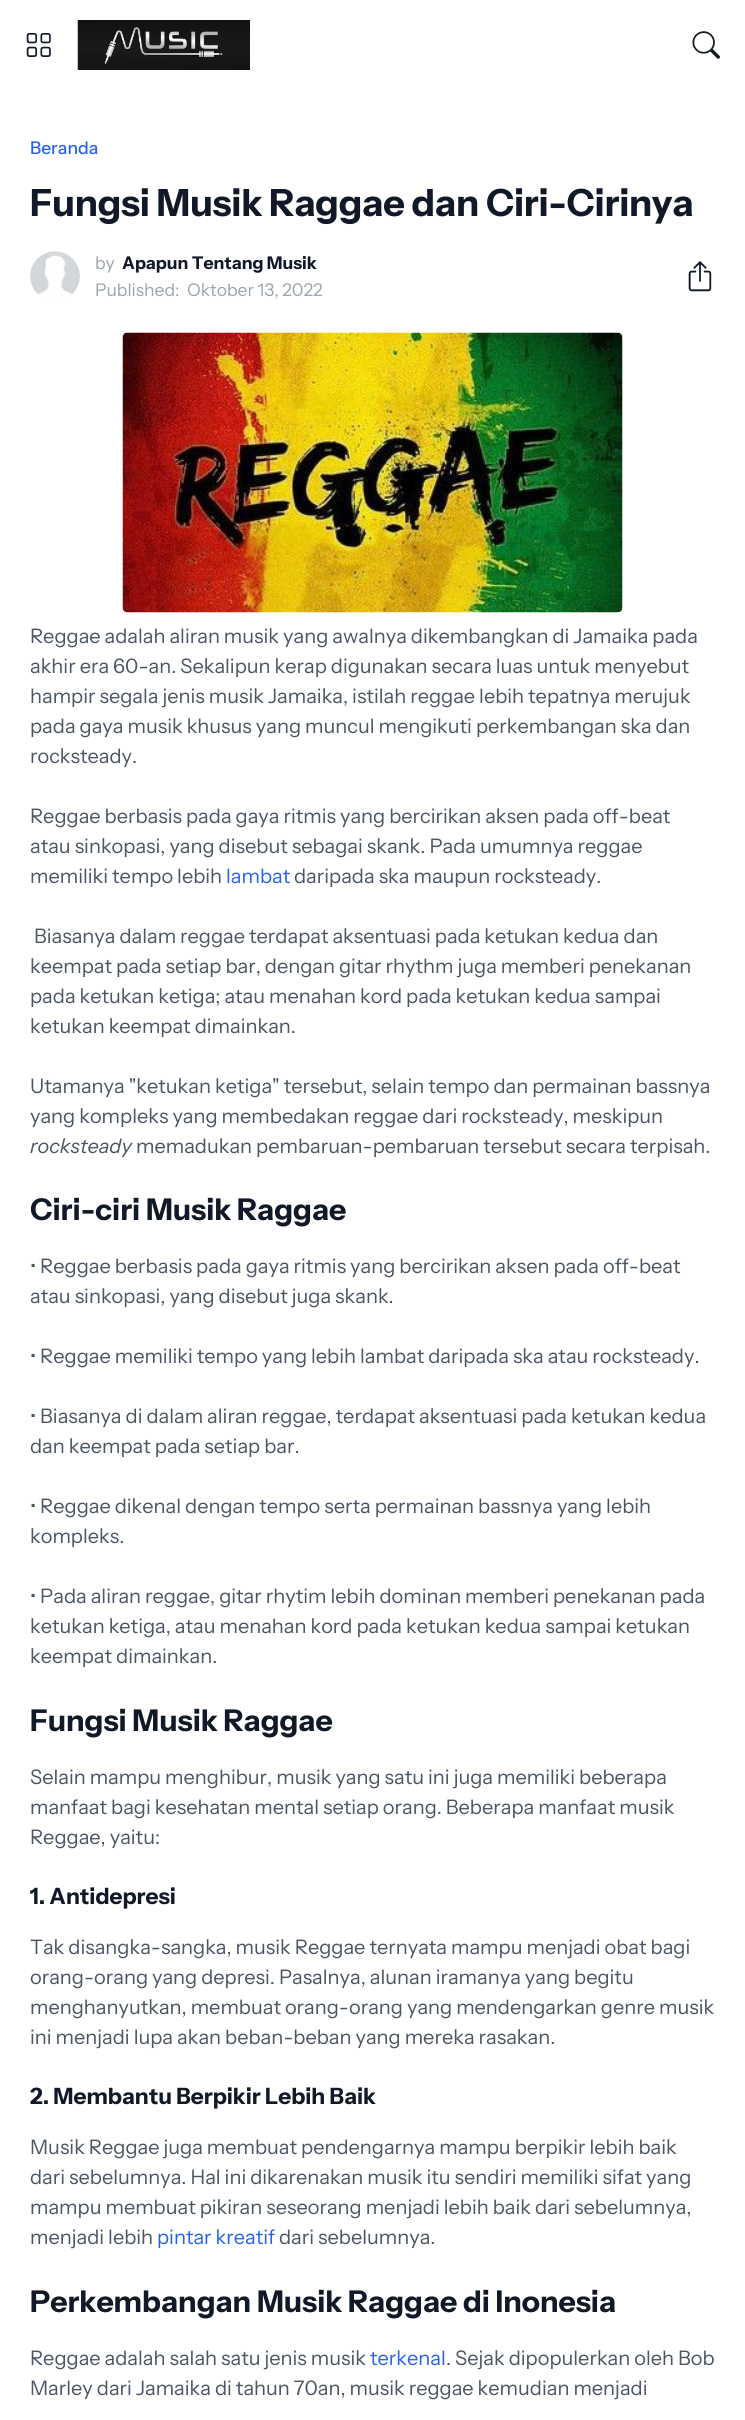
#include <cairo/cairo.h>
#include <math.h>
#include <stddef.h>

typedef struct { double x, y; const char *s; } line_t;
static cairo_t *cr;

static void rgb(unsigned color)
{
	cairo_set_source_rgb(cr, (color >> 16) / 255.0, (color >> 8 & 255) / 255.0, (color & 255) / 255.0);
}

static void tracked(double x, double y, const char *s, double letter, double word)
{
	cairo_move_to(cr, x, y);
	while (*s) {
		char ch[5] = {0};
		int n = 0;
		do ch[n++] = *s++; while ((*s & 0xC0) == 0x80);
		cairo_show_text(cr, ch);
		cairo_rel_move_to(cr, letter + word * (*ch == ' '), 0);
	}
}

static void image(const char *path, double x, double y, double w, double h)
{
	cairo_surface_t *image = cairo_image_surface_create_from_png(path);
	cairo_save(cr);
	cairo_set_source_surface(cr, image, x, y);
	cairo_rectangle(cr, x, y, w, h);
	cairo_fill(cr);
	cairo_restore(cr);
	cairo_surface_destroy(image);
}

int main(void) {
	cairo_surface_t *surface = cairo_image_surface_create(CAIRO_FORMAT_RGB24, 745, 2420);
	cr = cairo_create(surface);
	cairo_font_options_t *options = cairo_font_options_create();
	cairo_font_options_set_hint_metrics(options, CAIRO_HINT_METRICS_OFF);
	cairo_font_options_set_hint_style(options, CAIRO_HINT_STYLE_NONE);
	cairo_set_font_options(cr, options);
	cairo_set_miter_limit(cr, 4);
	rgb(0xffffff);
	cairo_paint(cr);
	image("img/1.png", 26, 33, 25, 24);
	image("img/2.png", 77, 20, 173, 50);
	image("img/3.png", 692, 31, 28, 28);
	rgb(0xf3f4f6);
	cairo_arc(cr, 55, 276, 25, 0, 2 * M_PI);
	cairo_fill(cr);
	image("img/4.png", 30, 251, 50, 50);
	image("img/5.png", 688, 261, 24, 31);
	image("img/6.png", 122, 332, 501, 281);
	cairo_select_font_face(cr, "Instrument Sans Medium", CAIRO_FONT_SLANT_NORMAL, CAIRO_FONT_WEIGHT_NORMAL);
	cairo_set_font_size(cr, 17.5);
	rgb(0x2563eb);
	cairo_move_to(cr, 30, 154);
	cairo_show_text(cr, "Beranda");
	cairo_select_font_face(cr, "Instrument Sans", CAIRO_FONT_SLANT_NORMAL, CAIRO_FONT_WEIGHT_BOLD);
	cairo_set_font_size(cr, 37.5);
	rgb(0x111827);
	tracked(30, 216, "Fungsi Musik Raggae dan Ciri-Cirinya", -0.2, 0);
	cairo_select_font_face(cr, "Instrument Sans", CAIRO_FONT_SLANT_NORMAL, CAIRO_FONT_WEIGHT_NORMAL);
	cairo_set_font_size(cr, 17.5);
	rgb(0x9ca3af);
	cairo_move_to(cr, 95, 269);
	cairo_show_text(cr, "by");
	cairo_select_font_face(cr, "Instrument Sans", CAIRO_FONT_SLANT_NORMAL, CAIRO_FONT_WEIGHT_BOLD);
	rgb(0x111827);
	cairo_move_to(cr, 122, 269);
	cairo_show_text(cr, "Apapun Tentang Musik");
	cairo_select_font_face(cr, "Instrument Sans", CAIRO_FONT_SLANT_NORMAL, CAIRO_FONT_WEIGHT_NORMAL);
	rgb(0x9ca3af);
	cairo_move_to(cr, 95, 296);
	cairo_show_text(cr, "Published:");
	cairo_move_to(cr, 187, 296);
	cairo_show_text(cr, "Oktober 13, 2022");
	cairo_set_font_size(cr, 20);
	rgb(0x4b5563);
	{
		static const line_t items[] = {
			{30, 643, "Reggae adalah aliran musik yang awalnya dikembangkan di Jamaika pada"},
			{30, 673, "akhir era 60-an. Sekalipun kerap digunakan secara luas untuk menyebut"},
			{30, 703, "hampir segala jenis musik Jamaika, istilah reggae lebih tepatnya merujuk"},
			{30, 733, "pada gaya musik khusus yang muncul mengikuti perkembangan ska dan"},
			{30, 763, "rocksteady."},
			{30, 823, "Reggae berbasis pada gaya ritmis yang bercirikan aksen pada off-beat"},
			{30, 853, "atau sinkopasi, yang disebut sebagai skank. Pada umumnya reggae"},
			{30, 883, "memiliki tempo lebih"},
		};
		for (size_t i = 0; i < sizeof items / sizeof *items; i++) {
			cairo_move_to(cr, items[i].x, items[i].y);
			cairo_show_text(cr, items[i].s);
		}
	}
	rgb(0x2563eb);
	cairo_move_to(cr, 226, 883);
	cairo_show_text(cr, "lambat");
	rgb(0x4b5563);
	{
		static const line_t items[] = {
			{294, 883, "daripada ska maupun rocksteady."},
			{34, 943, "Biasanya dalam reggae terdapat aksentuasi pada ketukan kedua dan"},
			{30, 973, "keempat pada setiap bar, dengan gitar rhythm juga memberi penekanan"},
			{30, 1003, "pada ketukan ketiga; atau menahan kord pada ketukan kedua sampai"},
			{30, 1033, "ketukan keempat dimainkan."},
			{30, 1093, "Utamanya \"ketukan ketiga\" tersebut, selain tempo dan permainan bassnya"},
			{30, 1123, "yang kompleks yang membedakan reggae dari rocksteady, meskipun"},
		};
		for (size_t i = 0; i < sizeof items / sizeof *items; i++) {
			cairo_move_to(cr, items[i].x, items[i].y);
			cairo_show_text(cr, items[i].s);
		}
	}
	cairo_select_font_face(cr, "Instrument Sans", CAIRO_FONT_SLANT_ITALIC, CAIRO_FONT_WEIGHT_NORMAL);
	cairo_move_to(cr, 30, 1153);
	cairo_show_text(cr, "rocksteady");
	cairo_select_font_face(cr, "Instrument Sans", CAIRO_FONT_SLANT_NORMAL, CAIRO_FONT_WEIGHT_NORMAL);
	cairo_move_to(cr, 136, 1153);
	cairo_show_text(cr, "memadukan pembaruan-pembaruan tersebut secara terpisah.");
	cairo_select_font_face(cr, "Instrument Sans", CAIRO_FONT_SLANT_NORMAL, CAIRO_FONT_WEIGHT_BOLD);
	cairo_set_font_size(cr, 30);
	rgb(0x111827);
	cairo_move_to(cr, 30, 1220);
	cairo_show_text(cr, "Ciri-ciri Musik Raggae");
	cairo_select_font_face(cr, "Instrument Sans", CAIRO_FONT_SLANT_NORMAL, CAIRO_FONT_WEIGHT_NORMAL);
	cairo_set_font_size(cr, 20);
	rgb(0x4b5563);
	{
		static const line_t items[] = {
			{30, 1273, "• Reggae berbasis pada gaya ritmis yang bercirikan aksen pada off-beat"},
			{30, 1303, "atau sinkopasi, yang disebut juga skank."},
			{30, 1363, "• Reggae memiliki tempo yang lebih lambat daripada ska atau rocksteady."},
			{30, 1423, "• Biasanya di dalam aliran reggae, terdapat aksentuasi pada ketukan kedua"},
			{30, 1453, "dan keempat pada setiap bar."},
			{30, 1513, "• Reggae dikenal dengan tempo serta permainan bassnya yang lebih"},
			{30, 1543, "kompleks."},
			{30, 1603, "• Pada aliran reggae, gitar rhytim lebih dominan memberi penekanan pada"},
			{30, 1633, "ketukan ketiga, atau menahan kord pada ketukan kedua sampai ketukan"},
			{30, 1663, "keempat dimainkan."},
		};
		for (size_t i = 0; i < sizeof items / sizeof *items; i++) {
			cairo_move_to(cr, items[i].x, items[i].y);
			cairo_show_text(cr, items[i].s);
		}
	}
	cairo_select_font_face(cr, "Instrument Sans", CAIRO_FONT_SLANT_NORMAL, CAIRO_FONT_WEIGHT_BOLD);
	cairo_set_font_size(cr, 30);
	rgb(0x111827);
	cairo_move_to(cr, 30, 1731);
	cairo_show_text(cr, "Fungsi Musik Raggae");
	cairo_select_font_face(cr, "Instrument Sans", CAIRO_FONT_SLANT_NORMAL, CAIRO_FONT_WEIGHT_NORMAL);
	cairo_set_font_size(cr, 20);
	rgb(0x4b5563);
	{
		static const line_t items[] = {
			{30, 1784, "Selain mampu menghibur, musik yang satu ini juga memiliki beberapa"},
			{30, 1814, "manfaat bagi kesehatan mental setiap orang. Beberapa manfaat musik"},
			{30, 1844, "Reggae, yaitu:"},
		};
		for (size_t i = 0; i < sizeof items / sizeof *items; i++) {
			cairo_move_to(cr, items[i].x, items[i].y);
			cairo_show_text(cr, items[i].s);
		}
	}
	cairo_select_font_face(cr, "Instrument Sans", CAIRO_FONT_SLANT_NORMAL, CAIRO_FONT_WEIGHT_BOLD);
	cairo_set_font_size(cr, 22.5);
	rgb(0x111827);
	cairo_move_to(cr, 30, 1904);
	cairo_show_text(cr, "1. Antidepresi");
	cairo_select_font_face(cr, "Instrument Sans", CAIRO_FONT_SLANT_NORMAL, CAIRO_FONT_WEIGHT_NORMAL);
	cairo_set_font_size(cr, 20);
	rgb(0x4b5563);
	{
		static const line_t items[] = {
			{30, 1954, "Tak disangka-sangka, musik Reggae ternyata mampu menjadi obat bagi"},
			{30, 1984, "orang-orang yang depresi. Pasalnya, alunan iramanya yang begitu"},
			{30, 2014, "menghanyutkan, membuat orang-orang yang mendengarkan genre musik"},
			{30, 2044, "ini menjadi lupa akan beban-beban yang mereka rasakan."},
		};
		for (size_t i = 0; i < sizeof items / sizeof *items; i++) {
			cairo_move_to(cr, items[i].x, items[i].y);
			cairo_show_text(cr, items[i].s);
		}
	}
	cairo_select_font_face(cr, "Instrument Sans", CAIRO_FONT_SLANT_NORMAL, CAIRO_FONT_WEIGHT_BOLD);
	cairo_set_font_size(cr, 22.5);
	rgb(0x111827);
	cairo_move_to(cr, 30, 2104);
	cairo_show_text(cr, "2. Membantu Berpikir Lebih Baik");
	cairo_select_font_face(cr, "Instrument Sans", CAIRO_FONT_SLANT_NORMAL, CAIRO_FONT_WEIGHT_NORMAL);
	cairo_set_font_size(cr, 20);
	rgb(0x4b5563);
	{
		static const line_t items[] = {
			{30, 2154, "Musik Reggae juga membuat pendengarnya mampu berpikir lebih baik"},
			{30, 2184, "dari sebelumnya. Hal ini dikarenakan musik itu sendiri memiliki sifat yang"},
			{30, 2214, "mampu membuat pikiran seseorang menjadi lebih baik dari sebelumnya,"},
			{30, 2244, "menjadi lebih"},
		};
		for (size_t i = 0; i < sizeof items / sizeof *items; i++) {
			cairo_move_to(cr, items[i].x, items[i].y);
			cairo_show_text(cr, items[i].s);
		}
	}
	rgb(0x2563eb);
	cairo_move_to(cr, 157, 2244);
	cairo_show_text(cr, "pintar kreatif");
	rgb(0x4b5563);
	cairo_move_to(cr, 279, 2244);
	cairo_show_text(cr, "dari sebelumnya.");
	cairo_select_font_face(cr, "Instrument Sans", CAIRO_FONT_SLANT_NORMAL, CAIRO_FONT_WEIGHT_BOLD);
	cairo_set_font_size(cr, 30);
	rgb(0x111827);
	cairo_move_to(cr, 30, 2312);
	cairo_show_text(cr, "Perkembangan Musik Raggae di Inonesia");
	cairo_select_font_face(cr, "Instrument Sans", CAIRO_FONT_SLANT_NORMAL, CAIRO_FONT_WEIGHT_NORMAL);
	cairo_set_font_size(cr, 20);
	rgb(0x4b5563);
	cairo_move_to(cr, 30, 2365);
	cairo_show_text(cr, "Reggae adalah salah satu jenis musik");
	rgb(0x2563eb);
	cairo_move_to(cr, 370, 2365);
	cairo_show_text(cr, "terkenal");
	rgb(0x4b5563);
	cairo_move_to(cr, 446, 2365);
	cairo_show_text(cr, ". Sejak dipopulerkan oleh Bob");
	cairo_move_to(cr, 30, 2395);
	cairo_show_text(cr, "Marley dari Jamaika di tahun 70an, musik reggae kemudian menjadi");
	cairo_surface_write_to_png(surface, "page.png");
	cairo_font_options_destroy(options);
	cairo_destroy(cr);
	cairo_surface_destroy(surface);
	return 0;
}
